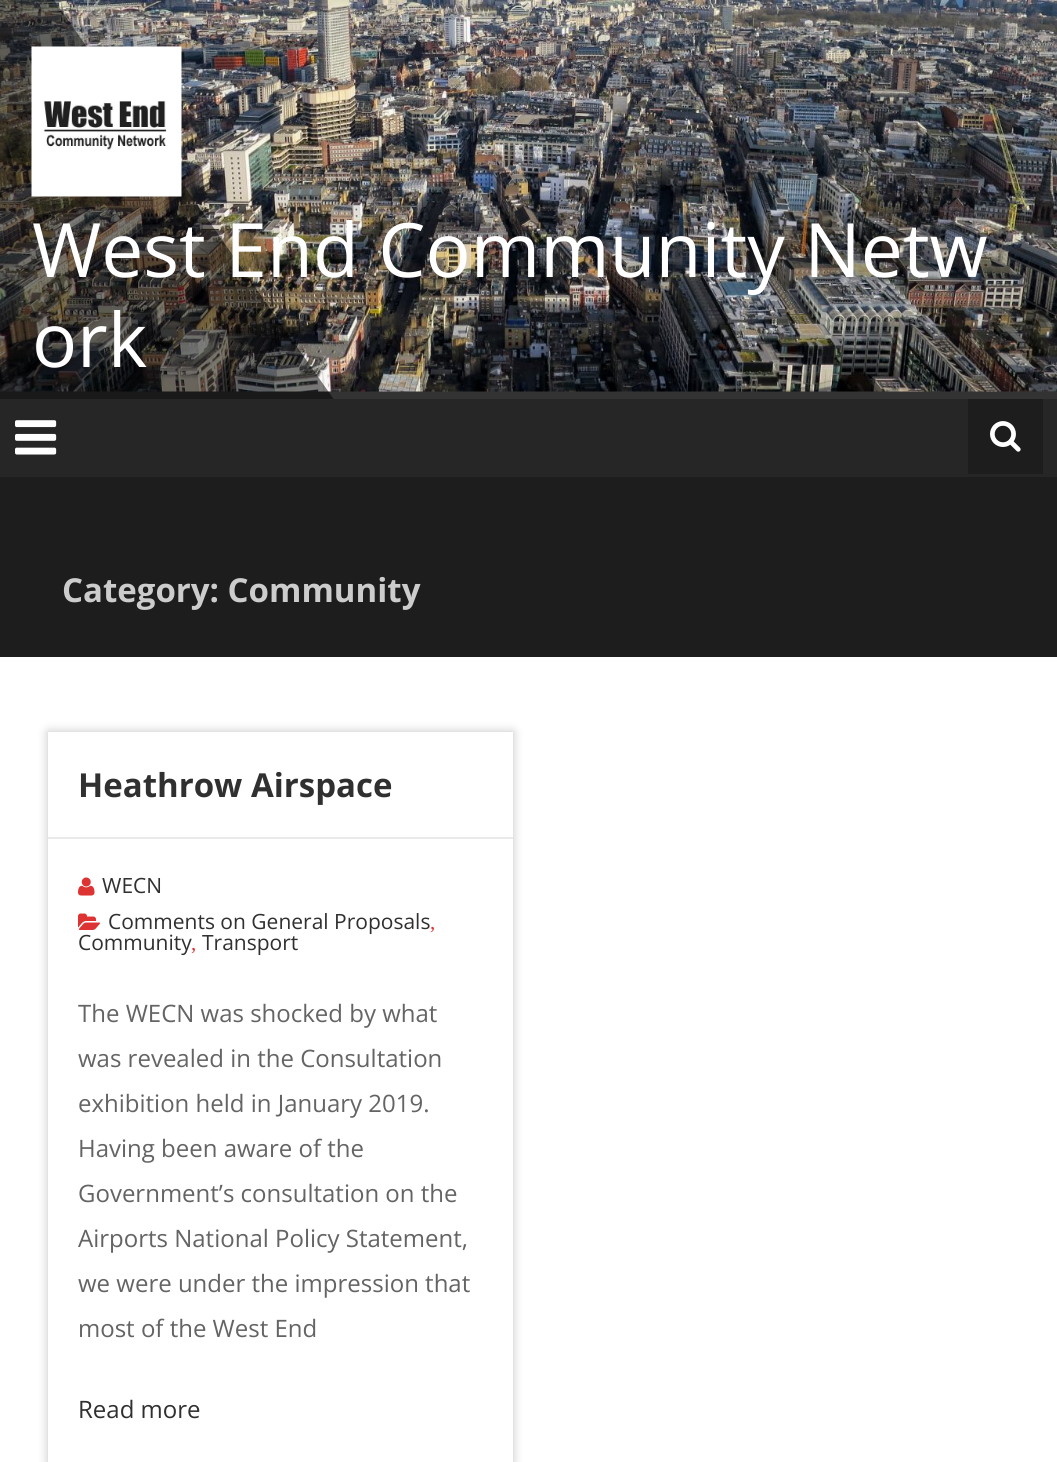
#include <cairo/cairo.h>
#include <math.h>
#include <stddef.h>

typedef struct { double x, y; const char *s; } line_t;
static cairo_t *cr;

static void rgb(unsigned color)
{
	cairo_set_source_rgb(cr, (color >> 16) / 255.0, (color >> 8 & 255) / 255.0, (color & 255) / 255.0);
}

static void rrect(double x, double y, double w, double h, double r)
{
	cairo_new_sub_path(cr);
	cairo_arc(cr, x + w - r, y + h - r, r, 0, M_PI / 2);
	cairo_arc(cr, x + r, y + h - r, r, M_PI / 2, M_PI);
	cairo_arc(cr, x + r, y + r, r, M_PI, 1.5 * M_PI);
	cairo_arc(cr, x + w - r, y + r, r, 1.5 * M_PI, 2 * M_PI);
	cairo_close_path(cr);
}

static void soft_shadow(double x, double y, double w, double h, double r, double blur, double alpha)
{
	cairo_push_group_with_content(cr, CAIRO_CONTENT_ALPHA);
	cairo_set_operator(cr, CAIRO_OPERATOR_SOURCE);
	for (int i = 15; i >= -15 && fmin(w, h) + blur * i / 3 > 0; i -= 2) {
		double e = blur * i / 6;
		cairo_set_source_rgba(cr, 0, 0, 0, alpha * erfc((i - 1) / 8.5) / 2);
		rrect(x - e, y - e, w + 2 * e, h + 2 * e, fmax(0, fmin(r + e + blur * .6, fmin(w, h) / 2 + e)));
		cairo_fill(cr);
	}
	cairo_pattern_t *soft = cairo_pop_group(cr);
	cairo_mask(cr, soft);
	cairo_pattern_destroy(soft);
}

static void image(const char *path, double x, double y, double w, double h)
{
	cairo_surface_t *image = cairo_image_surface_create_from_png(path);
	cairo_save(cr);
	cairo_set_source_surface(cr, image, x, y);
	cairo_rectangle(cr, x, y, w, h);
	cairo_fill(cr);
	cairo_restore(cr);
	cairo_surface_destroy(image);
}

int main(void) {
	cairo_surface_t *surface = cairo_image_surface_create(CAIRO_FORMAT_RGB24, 1057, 1462);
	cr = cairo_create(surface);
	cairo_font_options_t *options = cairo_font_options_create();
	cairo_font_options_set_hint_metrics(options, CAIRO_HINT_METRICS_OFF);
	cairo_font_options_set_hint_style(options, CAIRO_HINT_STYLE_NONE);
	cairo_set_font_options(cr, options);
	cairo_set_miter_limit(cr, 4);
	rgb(0xffffff);
	cairo_paint(cr);
	rgb(0x333333);
	cairo_rectangle(cr, 0, 391, 1057, 8);
	cairo_fill(cr);
	image("img/1.png", 0, 0, 1057, 392);
	cairo_save(cr);
	cairo_rectangle(cr, 0, 0, 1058, 399);
	cairo_clip(cr);
	cairo_set_source_rgba(cr, 0, 0, 0, 0.5);
	cairo_new_path(cr);
	cairo_move_to(cr, -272, -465);
	cairo_line_to(cr, 335, 401);
	cairo_line_to(cr, -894, 1262);
	cairo_line_to(cr, -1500, 395);
	cairo_close_path(cr);
	cairo_fill(cr);
	cairo_restore(cr);
	image("img/2.png", 31, 46, 151, 151);
	rgb(0x262626);
	cairo_rectangle(cr, 0, 399, 1057, 78);
	cairo_fill(cr);
	image("img/3.png", 15, 420, 42, 35);
	rgb(0x1d1d1d);
	cairo_rectangle(cr, 968, 399, 75, 75);
	cairo_fill(cr);
	image("img/4.png", 990, 421, 31, 31);
	cairo_rectangle(cr, 0, 477, 1057, 180);
	cairo_fill(cr);
	cairo_save(cr);
	cairo_set_fill_rule(cr, CAIRO_FILL_RULE_EVEN_ODD);
	cairo_new_path(cr);
	cairo_move_to(cr, 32, 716);
	cairo_line_to(cr, 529, 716);
	cairo_line_to(cr, 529, 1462);
	cairo_line_to(cr, 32, 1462);
	cairo_close_path(cr);
	cairo_move_to(cr, 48, 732);
	cairo_line_to(cr, 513, 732);
	cairo_line_to(cr, 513, 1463);
	cairo_line_to(cr, 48, 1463);
	cairo_close_path(cr);
	cairo_clip(cr);
	rgb(0xc2c2c2);
	soft_shadow(48, 732, 465, 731, 0, 5, 1);
	cairo_restore(cr);
	rgb(0xeaeaea);
	cairo_rectangle(cr, 48, 837, 465, 2);
	cairo_fill(cr);
	image("img/5.png", 78, 877, 17, 19);
	image("img/6.png", 78, 913, 22, 17);
	cairo_select_font_face(cr, "Open Sans", CAIRO_FONT_SLANT_NORMAL, CAIRO_FONT_WEIGHT_NORMAL);
	cairo_set_font_size(cr, 75);
	rgb(0xffffff);
	cairo_move_to(cr, 32, 277);
	cairo_show_text(cr, "West End Community Netw");
	cairo_move_to(cr, 32, 367);
	cairo_show_text(cr, "ork");
	cairo_select_font_face(cr, "Open Sans", CAIRO_FONT_SLANT_NORMAL, CAIRO_FONT_WEIGHT_BOLD);
	cairo_set_font_size(cr, 33);
	rgb(0xcccccc);
	cairo_move_to(cr, 62, 602);
	cairo_show_text(cr, "Category: Community");
	rgb(0x303030);
	cairo_move_to(cr, 78, 797);
	cairo_show_text(cr, "Heathrow Airspace");
	cairo_select_font_face(cr, "Open Sans", CAIRO_FONT_SLANT_NORMAL, CAIRO_FONT_WEIGHT_NORMAL);
	cairo_set_font_size(cr, 21);
	cairo_move_to(cr, 102, 893);
	cairo_show_text(cr, "WECN");
	cairo_move_to(cr, 108, 929);
	cairo_show_text(cr, "Comments on General Proposals");
	cairo_select_font_face(cr, "Liberation Serif", CAIRO_FONT_SLANT_NORMAL, CAIRO_FONT_WEIGHT_NORMAL);
	rgb(0xdd3333);
	cairo_move_to(cr, 430, 929);
	cairo_show_text(cr, ",");
	cairo_select_font_face(cr, "Open Sans", CAIRO_FONT_SLANT_NORMAL, CAIRO_FONT_WEIGHT_NORMAL);
	rgb(0x303030);
	cairo_move_to(cr, 78, 950);
	cairo_show_text(cr, "Community");
	cairo_select_font_face(cr, "Liberation Serif", CAIRO_FONT_SLANT_NORMAL, CAIRO_FONT_WEIGHT_NORMAL);
	rgb(0xdd3333);
	cairo_move_to(cr, 191, 950);
	cairo_show_text(cr, ",");
	cairo_select_font_face(cr, "Open Sans", CAIRO_FONT_SLANT_NORMAL, CAIRO_FONT_WEIGHT_NORMAL);
	rgb(0x303030);
	cairo_move_to(cr, 202, 950);
	cairo_show_text(cr, "Transport");
	cairo_set_font_size(cr, 24);
	rgb(0x646464);
	{
		static const line_t items[] = {
			{78, 1022, "The WECN was shocked by what"},
			{78, 1067, "was revealed in the Consultation"},
			{78, 1112, "exhibition held in January 2019."},
			{78, 1157, "Having been aware of the"},
			{78, 1202, "Government’s consultation on the"},
			{78, 1247, "Airports National Policy Statement,"},
			{78, 1292, "we were under the impression that"},
			{78, 1337, "most of the West End"},
		};
		for (size_t i = 0; i < sizeof items / sizeof *items; i++) {
			cairo_move_to(cr, items[i].x, items[i].y);
			cairo_show_text(cr, items[i].s);
		}
	}
	rgb(0x303030);
	cairo_move_to(cr, 78, 1418);
	cairo_show_text(cr, "Read more");
	cairo_surface_write_to_png(surface, "page.png");
	cairo_font_options_destroy(options);
	cairo_destroy(cr);
	cairo_surface_destroy(surface);
	return 0;
}
